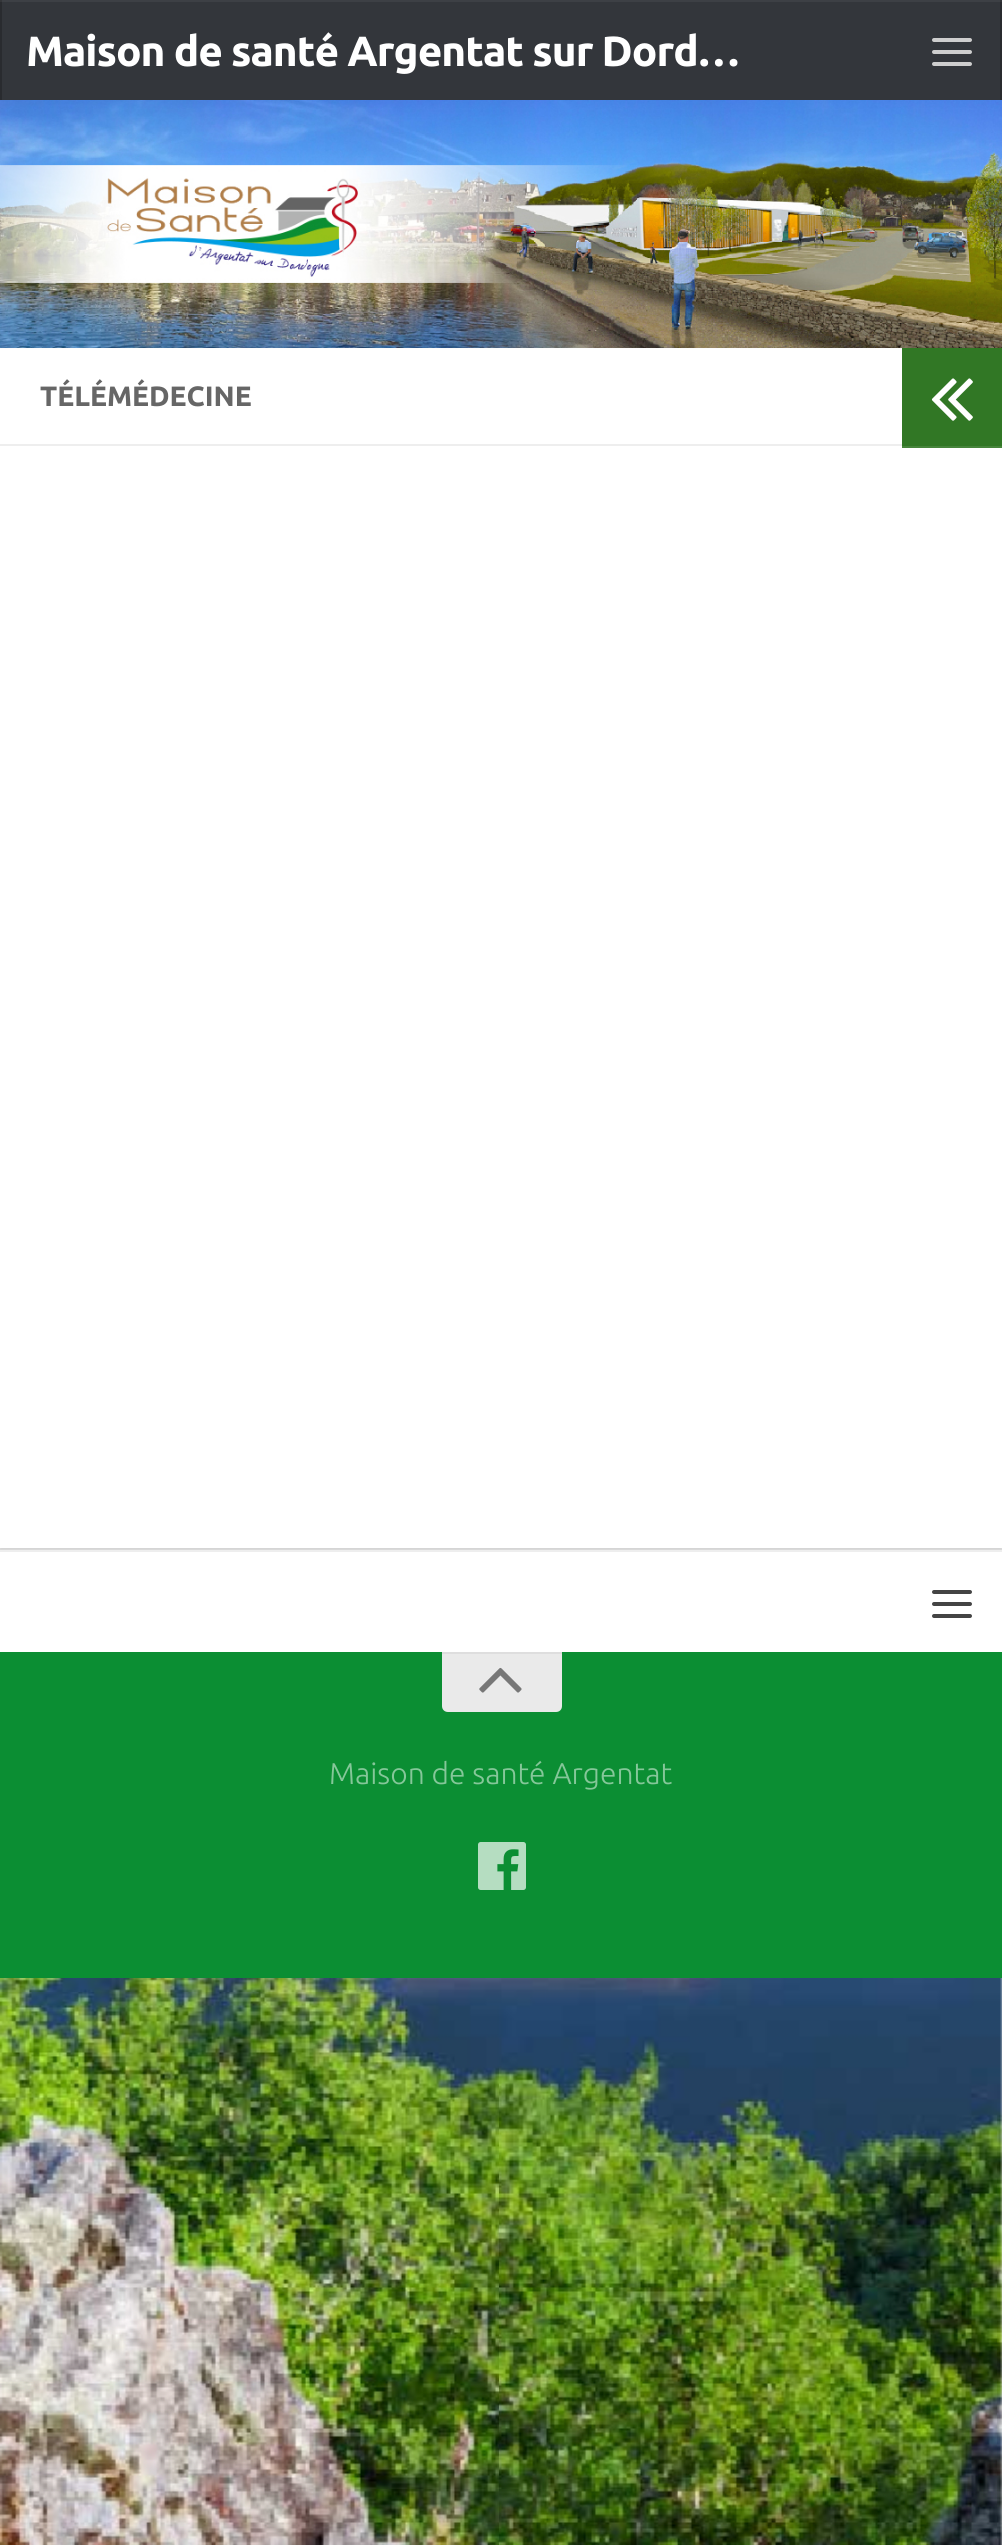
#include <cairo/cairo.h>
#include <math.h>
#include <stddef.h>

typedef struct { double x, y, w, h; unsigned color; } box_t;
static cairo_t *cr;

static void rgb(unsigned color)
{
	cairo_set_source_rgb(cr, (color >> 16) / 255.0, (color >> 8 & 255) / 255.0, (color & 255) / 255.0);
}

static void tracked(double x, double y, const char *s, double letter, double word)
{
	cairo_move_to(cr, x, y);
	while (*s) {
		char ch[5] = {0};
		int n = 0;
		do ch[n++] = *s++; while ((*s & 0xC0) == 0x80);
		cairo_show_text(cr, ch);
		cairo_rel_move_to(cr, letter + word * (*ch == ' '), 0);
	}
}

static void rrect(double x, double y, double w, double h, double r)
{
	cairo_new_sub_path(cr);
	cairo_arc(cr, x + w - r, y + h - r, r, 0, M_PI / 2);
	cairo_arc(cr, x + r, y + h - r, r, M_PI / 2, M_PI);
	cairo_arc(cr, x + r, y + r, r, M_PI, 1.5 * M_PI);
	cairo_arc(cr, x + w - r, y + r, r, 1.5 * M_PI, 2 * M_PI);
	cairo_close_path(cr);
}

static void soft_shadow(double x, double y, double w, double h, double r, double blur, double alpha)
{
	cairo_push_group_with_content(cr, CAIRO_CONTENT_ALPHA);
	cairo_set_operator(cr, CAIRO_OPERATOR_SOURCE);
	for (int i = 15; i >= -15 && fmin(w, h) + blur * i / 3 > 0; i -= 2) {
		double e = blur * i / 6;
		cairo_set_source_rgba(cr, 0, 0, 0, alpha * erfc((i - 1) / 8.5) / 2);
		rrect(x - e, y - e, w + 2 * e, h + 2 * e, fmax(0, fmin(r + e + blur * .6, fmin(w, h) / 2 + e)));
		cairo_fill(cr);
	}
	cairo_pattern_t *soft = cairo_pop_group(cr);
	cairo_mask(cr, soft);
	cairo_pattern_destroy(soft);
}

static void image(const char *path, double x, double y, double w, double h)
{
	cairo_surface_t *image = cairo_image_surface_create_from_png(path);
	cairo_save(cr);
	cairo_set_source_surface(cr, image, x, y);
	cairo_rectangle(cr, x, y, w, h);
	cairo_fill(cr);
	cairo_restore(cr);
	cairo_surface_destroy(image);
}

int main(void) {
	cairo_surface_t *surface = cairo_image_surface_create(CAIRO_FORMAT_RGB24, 1002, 2545);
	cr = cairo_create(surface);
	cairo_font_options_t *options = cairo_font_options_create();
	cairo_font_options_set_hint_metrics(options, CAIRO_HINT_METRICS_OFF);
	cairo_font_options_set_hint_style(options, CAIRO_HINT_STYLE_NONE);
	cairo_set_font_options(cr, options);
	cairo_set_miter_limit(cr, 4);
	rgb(0xffffff);
	cairo_paint(cr);
	image("img/1.png", 0, 1978, 1002, 567);
	{
		static const box_t items[] = {
			{2, 2, 998, 98, 0x33363b},
			{0, 0, 1002, 2, 0x3d4045},
			{1000, 0, 2, 100, 0x292b2f},
			{1000, 0, 2, 2, 0x343639},
			{0, 0, 2, 100, 0x292b2f},
			{0, 0, 2, 2, 0x343639},
		};
		for (size_t i = 0; i < sizeof items / sizeof *items; i++) {
			rgb(items[i].color);
			cairo_rectangle(cr, items[i].x, items[i].y, items[i].w, items[i].h);
			cairo_fill(cr);
		}
	}
	rgb(0xcecece);
	rrect(932, 38, 40, 4, 2);
	cairo_fill(cr);
	rrect(932, 50, 40, 4, 2);
	cairo_fill(cr);
	rrect(932, 62, 40, 4, 2);
	cairo_fill(cr);
	rgb(0xeaeaea);
	cairo_rectangle(cr, 0, 1548, 1002, 2);
	cairo_fill(cr);
	rgb(0x000000);
	soft_shadow(0, 350, 1002, 1200, 0, 1, 0.1);
	image("img/2.png", 0, 100, 1002, 248);
	{
		static const box_t items[] = {
			{0, 349, 1002, 1199, 0xffffff},
			{0, 444, 902, 2, 0xeeeeee},
			{902, 348, 100, 98, 0x317725},
			{902, 446, 100, 2, 0x46853b},
		};
		for (size_t i = 0; i < sizeof items / sizeof *items; i++) {
			rgb(items[i].color);
			cairo_rectangle(cr, items[i].x, items[i].y, items[i].w, items[i].h);
			cairo_fill(cr);
		}
	}
	image("img/3.png", 931, 378, 42, 43);
	rgb(0xeeeeee);
	cairo_rectangle(cr, 0, 1550, 1002, 2);
	cairo_fill(cr);
	rgb(0x444444);
	rrect(932, 1590, 40, 4, 2);
	cairo_fill(cr);
	rrect(932, 1602, 40, 4, 2);
	cairo_fill(cr);
	rrect(932, 1614, 40, 4, 2);
	cairo_fill(cr);
	rgb(0x0b8e33);
	cairo_rectangle(cr, 0, 1652, 1002, 326);
	cairo_fill(cr);
	rgb(0xeaeaea);
	cairo_new_path(cr);
	cairo_move_to(cr, 442, 1652);
	cairo_line_to(cr, 562, 1652);
	cairo_line_to(cr, 562, 1706);
	cairo_curve_to(cr, 562, 1709.5, 559.5, 1712, 556, 1712);
	cairo_line_to(cr, 448, 1712);
	cairo_curve_to(cr, 444.5, 1712, 442, 1709.5, 442, 1706);
	cairo_close_path(cr);
	cairo_fill(cr);
	rgb(0xdedede);
	cairo_rectangle(cr, 442, 1652, 120, 2);
	cairo_fill(cr);
	image("img/4.png", 479, 1667, 43, 26);
	image("img/5.png", 478, 1842, 48, 48);
	cairo_select_font_face(cr, "Ubuntu", CAIRO_FONT_SLANT_NORMAL, CAIRO_FONT_WEIGHT_BOLD);
	cairo_set_font_size(cr, 42.25);
	rgb(0xffffff);
	tracked(26, 66, "Maison de santé Argentat sur Dord…", -1, 0);
	cairo_set_font_size(cr, 28);
	rgb(0x666666);
	cairo_move_to(cr, 40, 406);
	cairo_show_text(cr, "TÉLÉMÉDECINE");
	cairo_select_font_face(cr, "Ubuntu Light", CAIRO_FONT_SLANT_NORMAL, CAIRO_FONT_WEIGHT_NORMAL);
	cairo_set_font_size(cr, 30);
	rgb(0x85c799);
	cairo_move_to(cr, 329, 1784);
	cairo_show_text(cr, "Maison de santé Argentat");
	cairo_surface_write_to_png(surface, "page.png");
	cairo_font_options_destroy(options);
	cairo_destroy(cr);
	cairo_surface_destroy(surface);
	return 0;
}
